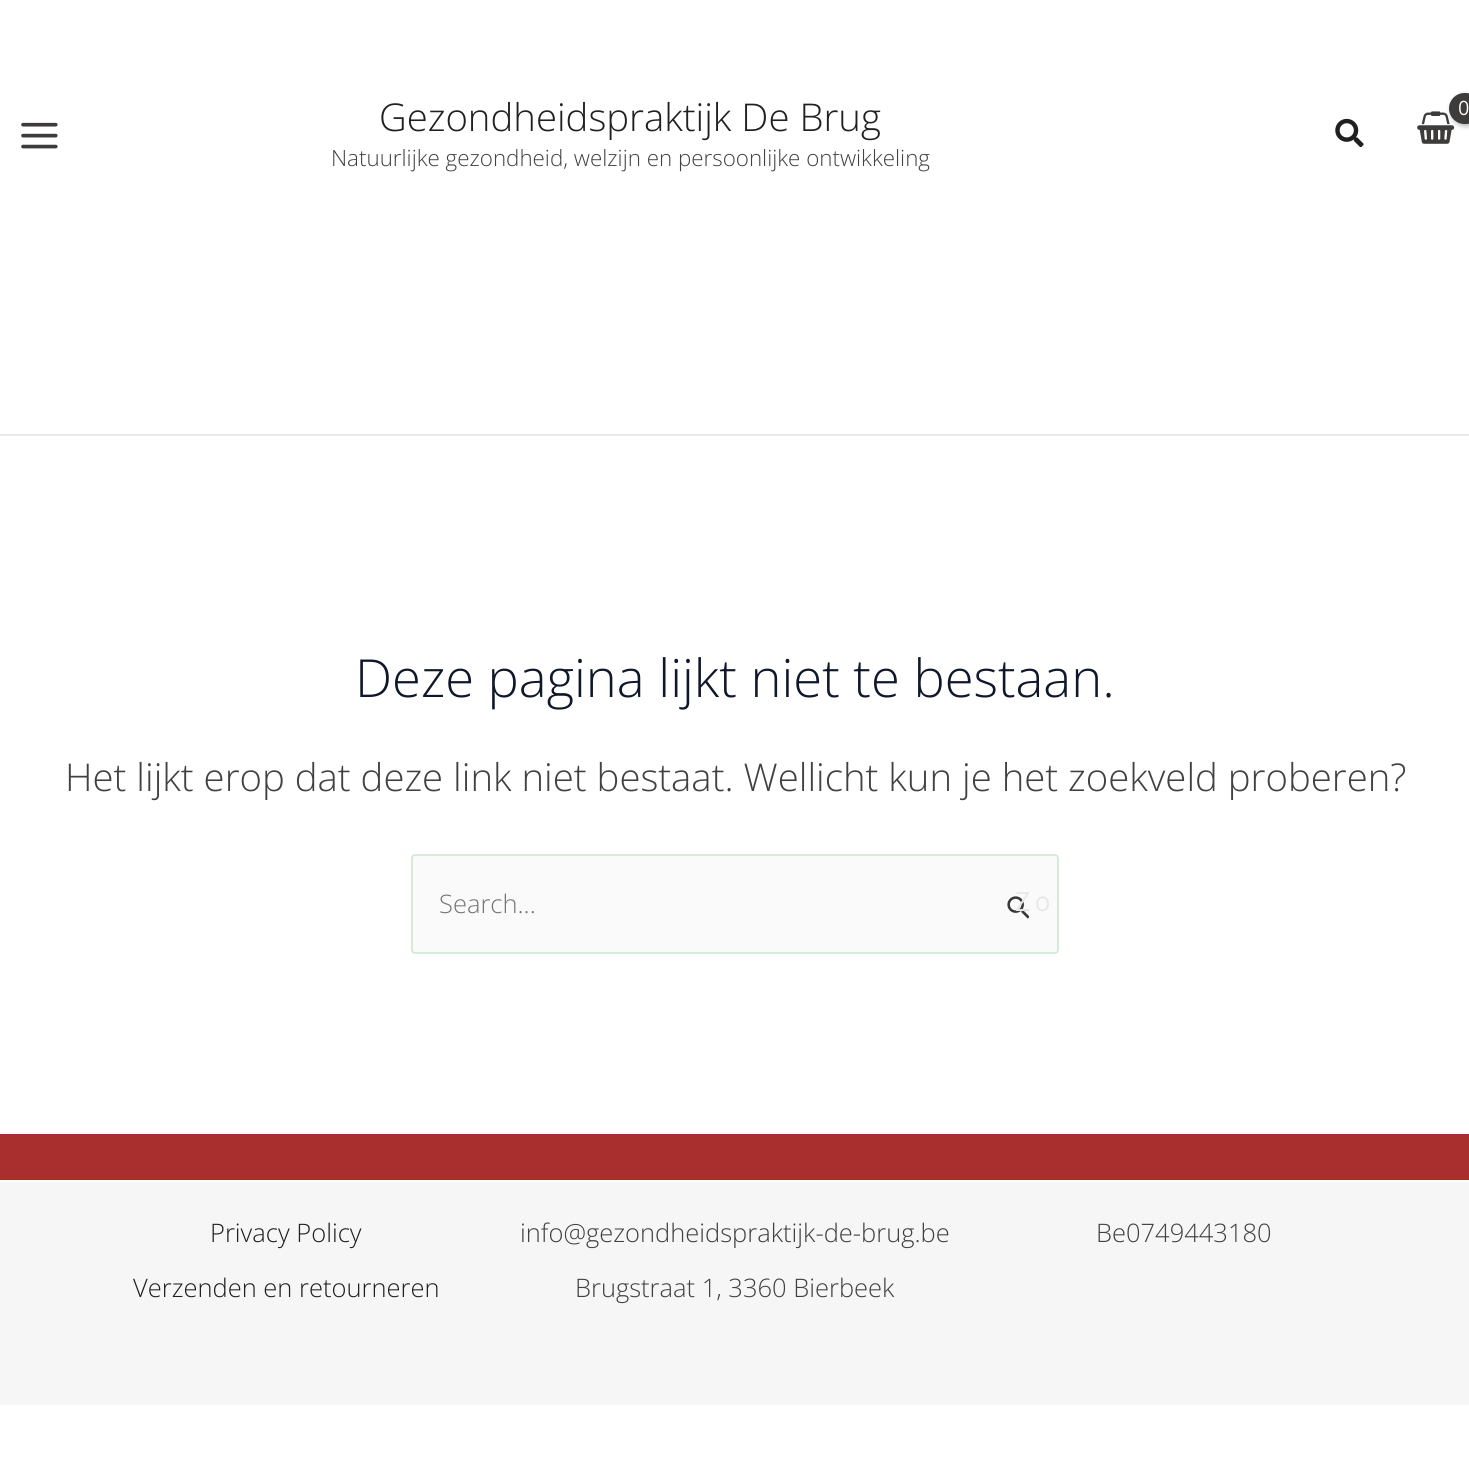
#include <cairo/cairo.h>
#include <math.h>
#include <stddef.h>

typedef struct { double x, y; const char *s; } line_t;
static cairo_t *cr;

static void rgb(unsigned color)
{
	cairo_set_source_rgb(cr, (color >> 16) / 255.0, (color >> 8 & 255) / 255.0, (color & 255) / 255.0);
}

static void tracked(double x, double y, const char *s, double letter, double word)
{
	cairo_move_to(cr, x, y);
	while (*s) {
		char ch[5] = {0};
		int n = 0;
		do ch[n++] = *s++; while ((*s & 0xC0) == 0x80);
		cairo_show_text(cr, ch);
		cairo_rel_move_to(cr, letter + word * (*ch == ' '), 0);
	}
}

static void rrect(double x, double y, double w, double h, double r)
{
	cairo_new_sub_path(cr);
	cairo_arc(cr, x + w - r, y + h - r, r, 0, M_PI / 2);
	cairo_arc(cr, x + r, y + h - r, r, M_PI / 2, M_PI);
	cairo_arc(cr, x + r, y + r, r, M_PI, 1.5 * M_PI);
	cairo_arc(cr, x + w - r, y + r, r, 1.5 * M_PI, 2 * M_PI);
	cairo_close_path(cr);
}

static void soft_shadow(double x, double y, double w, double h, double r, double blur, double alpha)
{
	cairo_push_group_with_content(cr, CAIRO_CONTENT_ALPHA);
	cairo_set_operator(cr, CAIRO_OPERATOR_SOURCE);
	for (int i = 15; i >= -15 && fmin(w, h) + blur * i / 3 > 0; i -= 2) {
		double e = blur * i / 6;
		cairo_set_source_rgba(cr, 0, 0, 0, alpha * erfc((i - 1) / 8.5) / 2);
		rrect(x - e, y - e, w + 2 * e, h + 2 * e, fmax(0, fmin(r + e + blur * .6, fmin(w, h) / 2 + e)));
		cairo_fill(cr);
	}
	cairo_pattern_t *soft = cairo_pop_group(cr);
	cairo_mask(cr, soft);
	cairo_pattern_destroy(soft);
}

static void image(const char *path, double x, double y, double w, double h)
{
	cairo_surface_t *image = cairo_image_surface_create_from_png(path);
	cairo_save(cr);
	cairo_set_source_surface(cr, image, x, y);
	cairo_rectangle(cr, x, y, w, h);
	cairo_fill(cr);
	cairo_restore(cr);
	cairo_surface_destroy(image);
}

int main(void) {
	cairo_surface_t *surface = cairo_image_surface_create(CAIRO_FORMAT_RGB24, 1469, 1460);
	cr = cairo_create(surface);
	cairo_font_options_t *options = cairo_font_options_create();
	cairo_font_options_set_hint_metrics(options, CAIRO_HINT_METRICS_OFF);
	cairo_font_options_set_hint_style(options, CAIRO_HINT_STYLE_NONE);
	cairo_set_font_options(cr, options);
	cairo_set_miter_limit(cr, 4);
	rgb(0xffffff);
	cairo_paint(cr);
	rgb(0xeaeaea);
	cairo_rectangle(cr, 0, 434, 1469, 2);
	cairo_fill(cr);
	image("img/1.png", 1417, 111, 38, 33);
	rgb(0x000000);
	soft_shadow(1451, 95, 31, 31, 15.5, 2.5, 0.3);
	rgb(0x3e3b3b);
	rrect(1449, 93, 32, 31, 15.5);
	cairo_fill(cr);
	image("img/2.png", 1335, 118, 29, 30);
	image("img/3.png", 21, 122, 37, 27);
	rgb(0xfafafa);
	rrect(412, 855, 646, 98, 3);
	cairo_fill_preserve(cr);
	rgb(0xd5ead8);
	cairo_stroke(cr);
	image("img/4.png", 1007, 896, 22, 23);
	rgb(0xa92f2f);
	cairo_rectangle(cr, 0, 1134, 1469, 46);
	cairo_fill(cr);
	rgb(0xf6f6f6);
	cairo_rectangle(cr, 0, 1182, 1469, 223);
	cairo_fill(cr);
	cairo_select_font_face(cr, "Open Sans Light", CAIRO_FONT_SLANT_NORMAL, CAIRO_FONT_WEIGHT_NORMAL);
	cairo_set_font_size(cr, 38.3);
	rgb(0x202020);
	cairo_move_to(cr, 379, 131);
	cairo_show_text(cr, "Gezondheidspraktijk De Brug");
	cairo_set_font_size(cr, 22.35);
	rgb(0x424140);
	cairo_move_to(cr, 331, 166);
	cairo_show_text(cr, "Natuurlijke gezondheid, welzijn en persoonlijke ontwikkeling");
	cairo_select_font_face(cr, "Open Sans", CAIRO_FONT_SLANT_NORMAL, CAIRO_FONT_WEIGHT_BOLD);
	cairo_set_font_size(cr, 19);
	rgb(0xffffff);
	tracked(1458, 115, "0", -1, 0);
	cairo_select_font_face(cr, "Open Sans Light", CAIRO_FONT_SLANT_NORMAL, CAIRO_FONT_WEIGHT_NORMAL);
	cairo_set_font_size(cr, 52.5);
	rgb(0x0f172a);
	cairo_move_to(cr, 355, 697);
	cairo_show_text(cr, "Deze pagina lijkt niet te bestaan.");
	cairo_set_font_size(cr, 38.3);
	rgb(0x424140);
	cairo_move_to(cr, 65, 791);
	cairo_show_text(cr, "Het lijkt erop dat deze link niet bestaat. Wellicht kun je het zoekveld proberen?");
	cairo_set_font_size(cr, 25.5);
	rgb(0x757575);
	cairo_move_to(cr, 439, 913);
	cairo_show_text(cr, "Search...");
	cairo_select_font_face(cr, "Open Sans", CAIRO_FONT_SLANT_NORMAL, CAIRO_FONT_WEIGHT_BOLD);
	rgb(0xe6e8e6);
	tracked(1015, 911, "Zo", 5, 0);
	cairo_select_font_face(cr, "Open Sans Light", CAIRO_FONT_SLANT_NORMAL, CAIRO_FONT_WEIGHT_NORMAL);
	rgb(0x202020);
	cairo_move_to(cr, 210, 1242);
	cairo_show_text(cr, "Privacy Policy");
	cairo_move_to(cr, 133, 1297);
	cairo_show_text(cr, "Verzenden en retourneren");
	rgb(0x424140);
	{
		static const line_t items[] = {
			{520, 1242, "info@gezondheidspraktijk-de-brug.be"},
			{575, 1297, "Brugstraat 1, 3360 Bierbeek"},
			{1096, 1242, "Be0749443180"},
		};
		for (size_t i = 0; i < sizeof items / sizeof *items; i++) {
			cairo_move_to(cr, items[i].x, items[i].y);
			cairo_show_text(cr, items[i].s);
		}
	}
	cairo_surface_write_to_png(surface, "page.png");
	cairo_font_options_destroy(options);
	cairo_destroy(cr);
	cairo_surface_destroy(surface);
	return 0;
}
